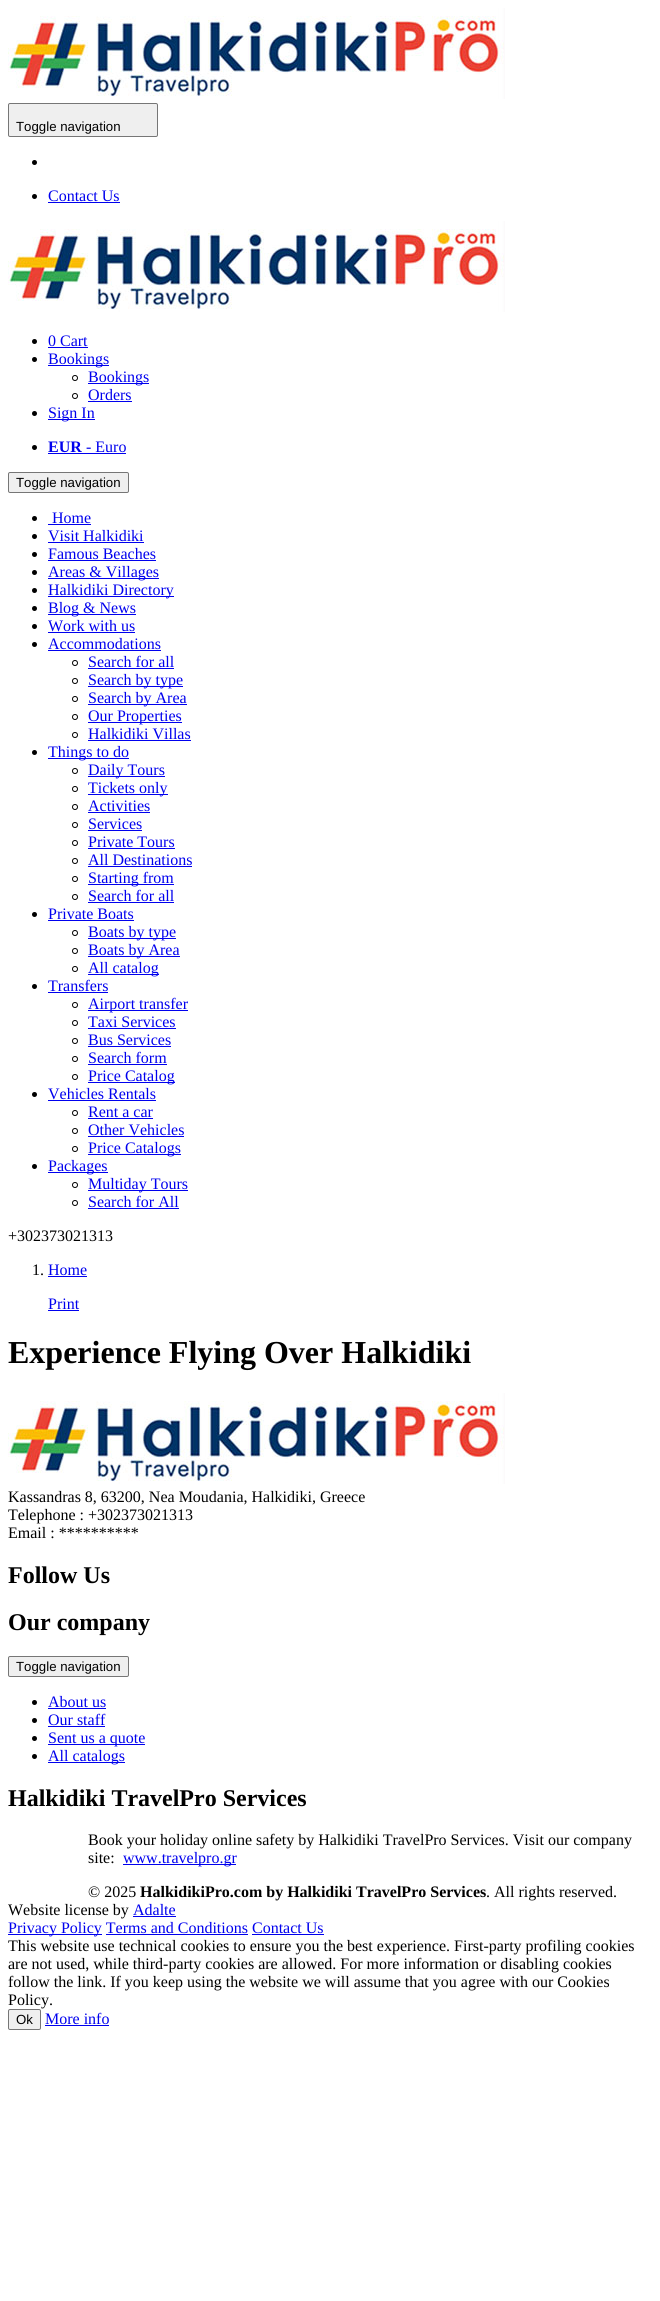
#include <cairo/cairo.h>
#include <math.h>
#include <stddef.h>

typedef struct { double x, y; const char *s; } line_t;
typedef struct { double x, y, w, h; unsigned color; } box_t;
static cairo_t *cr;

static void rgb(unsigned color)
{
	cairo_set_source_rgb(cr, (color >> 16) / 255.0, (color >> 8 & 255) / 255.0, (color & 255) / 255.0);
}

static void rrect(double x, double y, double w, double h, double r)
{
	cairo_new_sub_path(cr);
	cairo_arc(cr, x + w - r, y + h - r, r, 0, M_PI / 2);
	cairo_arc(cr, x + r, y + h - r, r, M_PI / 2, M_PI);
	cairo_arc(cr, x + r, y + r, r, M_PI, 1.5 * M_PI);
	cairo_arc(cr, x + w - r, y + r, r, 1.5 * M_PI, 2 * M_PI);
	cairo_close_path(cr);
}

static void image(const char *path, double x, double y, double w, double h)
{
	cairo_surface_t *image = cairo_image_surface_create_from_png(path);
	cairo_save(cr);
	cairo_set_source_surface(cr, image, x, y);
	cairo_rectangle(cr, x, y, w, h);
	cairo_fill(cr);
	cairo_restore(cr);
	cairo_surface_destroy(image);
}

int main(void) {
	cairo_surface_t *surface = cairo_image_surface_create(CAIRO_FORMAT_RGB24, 660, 2301);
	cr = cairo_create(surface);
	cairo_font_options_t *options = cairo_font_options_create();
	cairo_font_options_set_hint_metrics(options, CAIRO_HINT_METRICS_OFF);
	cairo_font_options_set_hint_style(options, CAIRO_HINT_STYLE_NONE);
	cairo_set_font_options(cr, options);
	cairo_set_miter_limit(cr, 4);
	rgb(0xffffff);
	cairo_paint(cr);
	image("img/1.png", 8, 8, 497, 91);
	rgb(0xefefef);
	rrect(8.5, 103.5, 149, 33, 1.5);
	cairo_fill_preserve(cr);
	rgb(0x767676);
	cairo_set_line_width(cr, 1);
	cairo_stroke(cr);
	rgb(0x000000);
	cairo_arc(cr, 34.5, 162.5, 2.5, 0, 2 * M_PI);
	cairo_fill(cr);
	cairo_arc(cr, 34.5, 196.5, 2.5, 0, 2 * M_PI);
	cairo_fill(cr);
	rgb(0x0000ee);
	cairo_rectangle(cr, 48, 202, 72, 1);
	cairo_fill(cr);
	image("img/1.png", 8, 221, 497, 91);
	rgb(0x000000);
	cairo_arc(cr, 34.5, 341.5, 2.5, 0, 2 * M_PI);
	cairo_fill(cr);
	rgb(0x0000ee);
	cairo_rectangle(cr, 48, 347, 40, 1);
	cairo_fill(cr);
	rgb(0x000000);
	cairo_arc(cr, 34.5, 359.5, 2.5, 0, 2 * M_PI);
	cairo_fill(cr);
	rgb(0x0000ee);
	cairo_rectangle(cr, 48, 365, 61, 1);
	cairo_fill(cr);
	cairo_arc(cr, 75, 378, 2.5, 0, 2 * M_PI);
	rgb(0x000000);
	cairo_stroke(cr);
	rgb(0x0000ee);
	cairo_rectangle(cr, 88, 383, 61, 1);
	cairo_fill(cr);
	cairo_arc(cr, 75, 396, 2.5, 0, 2 * M_PI);
	rgb(0x000000);
	cairo_stroke(cr);
	rgb(0x0000ee);
	cairo_rectangle(cr, 88, 401, 44, 1);
	cairo_fill(cr);
	rgb(0x000000);
	cairo_arc(cr, 34.5, 413.5, 2.5, 0, 2 * M_PI);
	cairo_fill(cr);
	rgb(0x0000ee);
	cairo_rectangle(cr, 48, 419, 47, 1);
	cairo_fill(cr);
	rgb(0x000000);
	cairo_arc(cr, 34.5, 447.5, 2.5, 0, 2 * M_PI);
	cairo_fill(cr);
	rgb(0x0000ee);
	cairo_rectangle(cr, 48, 453, 78, 1);
	cairo_fill(cr);
	rgb(0xefefef);
	rrect(8.5, 472.5, 120, 20, 1.5);
	cairo_fill_preserve(cr);
	rgb(0x767676);
	cairo_stroke(cr);
	rgb(0x000000);
	cairo_arc(cr, 34.5, 518.5, 2.5, 0, 2 * M_PI);
	cairo_fill(cr);
	rgb(0x0000ee);
	cairo_rectangle(cr, 48, 524, 43, 1);
	cairo_fill(cr);
	rgb(0x000000);
	cairo_arc(cr, 34.5, 536.5, 2.5, 0, 2 * M_PI);
	cairo_fill(cr);
	rgb(0x0000ee);
	cairo_rectangle(cr, 48, 542, 96, 1);
	cairo_fill(cr);
	rgb(0x000000);
	cairo_arc(cr, 34.5, 554.5, 2.5, 0, 2 * M_PI);
	cairo_fill(cr);
	rgb(0x0000ee);
	cairo_rectangle(cr, 48, 560, 108, 1);
	cairo_fill(cr);
	rgb(0x000000);
	cairo_arc(cr, 34.5, 572.5, 2.5, 0, 2 * M_PI);
	cairo_fill(cr);
	rgb(0x0000ee);
	cairo_rectangle(cr, 48, 578, 111, 1);
	cairo_fill(cr);
	rgb(0x000000);
	cairo_arc(cr, 34.5, 590.5, 2.5, 0, 2 * M_PI);
	cairo_fill(cr);
	rgb(0x0000ee);
	cairo_rectangle(cr, 48, 596, 126, 1);
	cairo_fill(cr);
	rgb(0x000000);
	cairo_arc(cr, 34.5, 608.5, 2.5, 0, 2 * M_PI);
	cairo_fill(cr);
	rgb(0x0000ee);
	cairo_rectangle(cr, 48, 614, 88, 1);
	cairo_fill(cr);
	rgb(0x000000);
	cairo_arc(cr, 34.5, 626.5, 2.5, 0, 2 * M_PI);
	cairo_fill(cr);
	rgb(0x0000ee);
	cairo_rectangle(cr, 48, 632, 87, 1);
	cairo_fill(cr);
	rgb(0x000000);
	cairo_arc(cr, 34.5, 644.5, 2.5, 0, 2 * M_PI);
	cairo_fill(cr);
	rgb(0x0000ee);
	cairo_rectangle(cr, 48, 650, 113, 1);
	cairo_fill(cr);
	cairo_arc(cr, 75, 663, 2.5, 0, 2 * M_PI);
	rgb(0x000000);
	cairo_stroke(cr);
	rgb(0x0000ee);
	cairo_rectangle(cr, 88, 668, 86, 1);
	cairo_fill(cr);
	cairo_arc(cr, 75, 681, 2.5, 0, 2 * M_PI);
	rgb(0x000000);
	cairo_stroke(cr);
	rgb(0x0000ee);
	cairo_rectangle(cr, 88, 686, 95, 1);
	cairo_fill(cr);
	cairo_arc(cr, 75, 699, 2.5, 0, 2 * M_PI);
	rgb(0x000000);
	cairo_stroke(cr);
	rgb(0x0000ee);
	cairo_rectangle(cr, 88, 704, 99, 1);
	cairo_fill(cr);
	cairo_arc(cr, 75, 717, 2.5, 0, 2 * M_PI);
	rgb(0x000000);
	cairo_stroke(cr);
	rgb(0x0000ee);
	cairo_rectangle(cr, 88, 722, 94, 1);
	cairo_fill(cr);
	cairo_arc(cr, 75, 735, 2.5, 0, 2 * M_PI);
	rgb(0x000000);
	cairo_stroke(cr);
	rgb(0x0000ee);
	cairo_rectangle(cr, 88, 740, 103, 1);
	cairo_fill(cr);
	rgb(0x000000);
	cairo_arc(cr, 34.5, 752.5, 2.5, 0, 2 * M_PI);
	cairo_fill(cr);
	rgb(0x0000ee);
	cairo_rectangle(cr, 48, 758, 81, 1);
	cairo_fill(cr);
	cairo_arc(cr, 75, 771, 2.5, 0, 2 * M_PI);
	rgb(0x000000);
	cairo_stroke(cr);
	rgb(0x0000ee);
	cairo_rectangle(cr, 88, 776, 77, 1);
	cairo_fill(cr);
	cairo_arc(cr, 75, 789, 2.5, 0, 2 * M_PI);
	rgb(0x000000);
	cairo_stroke(cr);
	rgb(0x0000ee);
	cairo_rectangle(cr, 88, 794, 80, 1);
	cairo_fill(cr);
	cairo_arc(cr, 75, 807, 2.5, 0, 2 * M_PI);
	rgb(0x000000);
	cairo_stroke(cr);
	rgb(0x0000ee);
	cairo_rectangle(cr, 88, 812, 62, 1);
	cairo_fill(cr);
	cairo_arc(cr, 75, 825, 2.5, 0, 2 * M_PI);
	rgb(0x000000);
	cairo_stroke(cr);
	rgb(0x0000ee);
	cairo_rectangle(cr, 88, 830, 54, 1);
	cairo_fill(cr);
	cairo_arc(cr, 75, 843, 2.5, 0, 2 * M_PI);
	rgb(0x000000);
	cairo_stroke(cr);
	rgb(0x0000ee);
	cairo_rectangle(cr, 88, 848, 87, 1);
	cairo_fill(cr);
	cairo_arc(cr, 75, 861, 2.5, 0, 2 * M_PI);
	rgb(0x000000);
	cairo_stroke(cr);
	rgb(0x0000ee);
	cairo_rectangle(cr, 88, 866, 104, 1);
	cairo_fill(cr);
	cairo_arc(cr, 75, 879, 2.5, 0, 2 * M_PI);
	rgb(0x000000);
	cairo_stroke(cr);
	rgb(0x0000ee);
	cairo_rectangle(cr, 88, 884, 86, 1);
	cairo_fill(cr);
	cairo_arc(cr, 75, 897, 2.5, 0, 2 * M_PI);
	rgb(0x000000);
	cairo_stroke(cr);
	rgb(0x0000ee);
	cairo_rectangle(cr, 88, 902, 86, 1);
	cairo_fill(cr);
	rgb(0x000000);
	cairo_arc(cr, 34.5, 914.5, 2.5, 0, 2 * M_PI);
	cairo_fill(cr);
	rgb(0x0000ee);
	cairo_rectangle(cr, 48, 920, 86, 1);
	cairo_fill(cr);
	cairo_arc(cr, 75, 933, 2.5, 0, 2 * M_PI);
	rgb(0x000000);
	cairo_stroke(cr);
	rgb(0x0000ee);
	cairo_rectangle(cr, 88, 938, 88, 1);
	cairo_fill(cr);
	cairo_arc(cr, 75, 951, 2.5, 0, 2 * M_PI);
	rgb(0x000000);
	cairo_stroke(cr);
	rgb(0x0000ee);
	cairo_rectangle(cr, 88, 956, 92, 1);
	cairo_fill(cr);
	cairo_arc(cr, 75, 969, 2.5, 0, 2 * M_PI);
	rgb(0x000000);
	cairo_stroke(cr);
	rgb(0x0000ee);
	cairo_rectangle(cr, 88, 974, 71, 1);
	cairo_fill(cr);
	rgb(0x000000);
	cairo_arc(cr, 34.5, 986.5, 2.5, 0, 2 * M_PI);
	cairo_fill(cr);
	rgb(0x0000ee);
	cairo_rectangle(cr, 48, 992, 60, 1);
	cairo_fill(cr);
	cairo_arc(cr, 75, 1005, 2.5, 0, 2 * M_PI);
	rgb(0x000000);
	cairo_stroke(cr);
	rgb(0x0000ee);
	cairo_rectangle(cr, 88, 1010, 100, 1);
	cairo_fill(cr);
	cairo_arc(cr, 75, 1023, 2.5, 0, 2 * M_PI);
	rgb(0x000000);
	cairo_stroke(cr);
	rgb(0x0000ee);
	cairo_rectangle(cr, 88, 1028, 88, 1);
	cairo_fill(cr);
	cairo_arc(cr, 75, 1041, 2.5, 0, 2 * M_PI);
	rgb(0x000000);
	cairo_stroke(cr);
	rgb(0x0000ee);
	cairo_rectangle(cr, 88, 1046, 83, 1);
	cairo_fill(cr);
	cairo_arc(cr, 75, 1059, 2.5, 0, 2 * M_PI);
	rgb(0x000000);
	cairo_stroke(cr);
	rgb(0x0000ee);
	cairo_rectangle(cr, 88, 1064, 79, 1);
	cairo_fill(cr);
	cairo_arc(cr, 75, 1077, 2.5, 0, 2 * M_PI);
	rgb(0x000000);
	cairo_stroke(cr);
	rgb(0x0000ee);
	cairo_rectangle(cr, 88, 1082, 87, 1);
	cairo_fill(cr);
	rgb(0x000000);
	cairo_arc(cr, 34.5, 1094.5, 2.5, 0, 2 * M_PI);
	cairo_fill(cr);
	rgb(0x0000ee);
	cairo_rectangle(cr, 48, 1100, 108, 1);
	cairo_fill(cr);
	cairo_arc(cr, 75, 1113, 2.5, 0, 2 * M_PI);
	rgb(0x000000);
	cairo_stroke(cr);
	rgb(0x0000ee);
	cairo_rectangle(cr, 88, 1118, 65, 1);
	cairo_fill(cr);
	cairo_arc(cr, 75, 1131, 2.5, 0, 2 * M_PI);
	rgb(0x000000);
	cairo_stroke(cr);
	rgb(0x0000ee);
	cairo_rectangle(cr, 88, 1136, 96, 1);
	cairo_fill(cr);
	cairo_arc(cr, 75, 1149, 2.5, 0, 2 * M_PI);
	rgb(0x000000);
	cairo_stroke(cr);
	rgb(0x0000ee);
	cairo_rectangle(cr, 88, 1154, 93, 1);
	cairo_fill(cr);
	rgb(0x000000);
	cairo_arc(cr, 34.5, 1166.5, 2.5, 0, 2 * M_PI);
	cairo_fill(cr);
	rgb(0x0000ee);
	cairo_rectangle(cr, 48, 1172, 60, 1);
	cairo_fill(cr);
	cairo_arc(cr, 75, 1185, 2.5, 0, 2 * M_PI);
	rgb(0x000000);
	cairo_stroke(cr);
	rgb(0x0000ee);
	cairo_rectangle(cr, 88, 1190, 100, 1);
	cairo_fill(cr);
	cairo_arc(cr, 75, 1203, 2.5, 0, 2 * M_PI);
	rgb(0x000000);
	cairo_stroke(cr);
	{
		static const box_t items[] = {
			{88, 1208, 91, 1, 0x0000ee},
			{48, 1276, 39, 1, 0x0000ee},
			{48, 1310, 31, 1, 0x0000ee},
		};
		for (size_t i = 0; i < sizeof items / sizeof *items; i++) {
			rgb(items[i].color);
			cairo_rectangle(cr, items[i].x, items[i].y, items[i].w, items[i].h);
			cairo_fill(cr);
		}
	}
	image("img/1.png", 8, 1393, 497, 91);
	rgb(0xefefef);
	rrect(8.5, 1656.5, 120, 20, 1.5);
	cairo_fill_preserve(cr);
	rgb(0x767676);
	cairo_stroke(cr);
	rgb(0x000000);
	cairo_arc(cr, 34.5, 1702.5, 2.5, 0, 2 * M_PI);
	cairo_fill(cr);
	rgb(0x0000ee);
	cairo_rectangle(cr, 48, 1708, 58, 1);
	cairo_fill(cr);
	rgb(0x000000);
	cairo_arc(cr, 34.5, 1720.5, 2.5, 0, 2 * M_PI);
	cairo_fill(cr);
	rgb(0x0000ee);
	cairo_rectangle(cr, 48, 1726, 57, 1);
	cairo_fill(cr);
	rgb(0x000000);
	cairo_arc(cr, 34.5, 1738.5, 2.5, 0, 2 * M_PI);
	cairo_fill(cr);
	rgb(0x0000ee);
	cairo_rectangle(cr, 48, 1744, 97, 1);
	cairo_fill(cr);
	rgb(0x000000);
	cairo_arc(cr, 34.5, 1756.5, 2.5, 0, 2 * M_PI);
	cairo_fill(cr);
	{
		static const box_t items[] = {
			{48, 1762, 77, 1, 0x0000ee},
			{123, 1864, 113, 1, 0x0000ee},
			{133, 1916, 43, 1, 0x0000ee},
			{8, 1934, 94, 1, 0x0000ee},
			{106, 1934, 142, 1, 0x0000ee},
			{252, 1934, 72, 1, 0x0000ee},
		};
		for (size_t i = 0; i < sizeof items / sizeof *items; i++) {
			rgb(items[i].color);
			cairo_rectangle(cr, items[i].x, items[i].y, items[i].w, items[i].h);
			cairo_fill(cr);
		}
	}
	rgb(0xefefef);
	rrect(8.5, 2009.5, 32, 20, 1.5);
	cairo_fill_preserve(cr);
	rgb(0x767676);
	cairo_stroke(cr);
	rgb(0x0000ee);
	cairo_rectangle(cr, 45, 2025, 64, 1);
	cairo_fill(cr);
	cairo_select_font_face(cr, "Liberation Sans", CAIRO_FONT_SLANT_NORMAL, CAIRO_FONT_WEIGHT_NORMAL);
	cairo_set_font_size(cr, 13.25);
	rgb(0x000000);
	cairo_move_to(cr, 16, 131);
	cairo_show_text(cr, "Toggle navigation");
	cairo_select_font_face(cr, "Liberation Serif", CAIRO_FONT_SLANT_NORMAL, CAIRO_FONT_WEIGHT_NORMAL);
	cairo_set_font_size(cr, 16);
	rgb(0x0000ee);
	{
		static const line_t items[] = {
			{48, 201, "Contact Us"},
			{48, 346, "0 Cart"},
			{48, 364, "Bookings"},
			{88, 382, "Bookings"},
			{88, 400, "Orders"},
			{48, 418, "Sign In"},
		};
		for (size_t i = 0; i < sizeof items / sizeof *items; i++) {
			cairo_move_to(cr, items[i].x, items[i].y);
			cairo_show_text(cr, items[i].s);
		}
	}
	cairo_select_font_face(cr, "Liberation Serif", CAIRO_FONT_SLANT_NORMAL, CAIRO_FONT_WEIGHT_BOLD);
	cairo_move_to(cr, 48, 452);
	cairo_show_text(cr, "EUR");
	cairo_select_font_face(cr, "Liberation Serif", CAIRO_FONT_SLANT_NORMAL, CAIRO_FONT_WEIGHT_NORMAL);
	cairo_move_to(cr, 86, 452);
	cairo_show_text(cr, "- Euro");
	cairo_select_font_face(cr, "Liberation Sans", CAIRO_FONT_SLANT_NORMAL, CAIRO_FONT_WEIGHT_NORMAL);
	cairo_set_font_size(cr, 13.25);
	rgb(0x000000);
	cairo_move_to(cr, 16, 487);
	cairo_show_text(cr, "Toggle navigation");
	cairo_select_font_face(cr, "Liberation Serif", CAIRO_FONT_SLANT_NORMAL, CAIRO_FONT_WEIGHT_NORMAL);
	cairo_set_font_size(cr, 16);
	rgb(0x0000ee);
	{
		static const line_t items[] = {
			{52, 523, "Home"},
			{48, 541, "Visit Halkidiki"},
			{48, 559, "Famous Beaches"},
			{48, 577, "Areas & Villages"},
			{48, 595, "Halkidiki Directory"},
			{48, 613, "Blog & News"},
			{48, 631, "Work with us"},
			{48, 649, "Accommodations"},
			{88, 667, "Search for all"},
			{88, 685, "Search by type"},
			{88, 703, "Search by Area"},
			{88, 721, "Our Properties"},
			{88, 739, "Halkidiki Villas"},
			{48, 757, "Things to do"},
			{88, 775, "Daily Tours"},
			{88, 793, "Tickets only"},
			{88, 811, "Activities"},
			{88, 829, "Services"},
			{88, 847, "Private Tours"},
			{88, 865, "All Destinations"},
			{88, 883, "Starting from"},
			{88, 901, "Search for all"},
			{48, 919, "Private Boats"},
			{88, 937, "Boats by type"},
			{88, 955, "Boats by Area"},
			{88, 973, "All catalog"},
			{48, 991, "Transfers"},
			{88, 1009, "Airport transfer"},
			{88, 1027, "Taxi Services"},
			{88, 1045, "Bus Services"},
			{88, 1063, "Search form"},
			{88, 1081, "Price Catalog"},
			{48, 1099, "Vehicles Rentals"},
			{88, 1117, "Rent a car"},
			{88, 1135, "Other Vehicles"},
			{88, 1153, "Price Catalogs"},
			{48, 1171, "Packages"},
			{88, 1189, "Multiday Tours"},
			{88, 1207, "Search for All"},
		};
		for (size_t i = 0; i < sizeof items / sizeof *items; i++) {
			cairo_move_to(cr, items[i].x, items[i].y);
			cairo_show_text(cr, items[i].s);
		}
	}
	rgb(0x000000);
	cairo_move_to(cr, 8, 1241);
	cairo_show_text(cr, "+302373021313");
	cairo_move_to(cr, 32, 1275);
	cairo_show_text(cr, "1.");
	rgb(0x0000ee);
	cairo_move_to(cr, 48, 1275);
	cairo_show_text(cr, "Home");
	cairo_move_to(cr, 48, 1309);
	cairo_show_text(cr, "Print");
	cairo_select_font_face(cr, "Liberation Serif", CAIRO_FONT_SLANT_NORMAL, CAIRO_FONT_WEIGHT_BOLD);
	cairo_set_font_size(cr, 32);
	rgb(0x000000);
	cairo_move_to(cr, 8, 1363);
	cairo_show_text(cr, "Experience Flying Over Halkidiki");
	cairo_select_font_face(cr, "Liberation Serif", CAIRO_FONT_SLANT_NORMAL, CAIRO_FONT_WEIGHT_NORMAL);
	cairo_set_font_size(cr, 16);
	{
		static const line_t items[] = {
			{8, 1502, "Kassandras 8, 63200, Nea Moudania, Halkidiki, Greece"},
			{8, 1520, "Telephone : +302373021313"},
			{8, 1538, "Email : **********"},
		};
		for (size_t i = 0; i < sizeof items / sizeof *items; i++) {
			cairo_move_to(cr, items[i].x, items[i].y);
			cairo_show_text(cr, items[i].s);
		}
	}
	cairo_select_font_face(cr, "Liberation Serif", CAIRO_FONT_SLANT_NORMAL, CAIRO_FONT_WEIGHT_BOLD);
	cairo_set_font_size(cr, 24);
	cairo_move_to(cr, 8, 1583);
	cairo_show_text(cr, "Follow Us");
	cairo_move_to(cr, 8, 1630);
	cairo_show_text(cr, "Our company");
	cairo_select_font_face(cr, "Liberation Sans", CAIRO_FONT_SLANT_NORMAL, CAIRO_FONT_WEIGHT_NORMAL);
	cairo_set_font_size(cr, 13.25);
	cairo_move_to(cr, 16, 1671);
	cairo_show_text(cr, "Toggle navigation");
	cairo_select_font_face(cr, "Liberation Serif", CAIRO_FONT_SLANT_NORMAL, CAIRO_FONT_WEIGHT_NORMAL);
	cairo_set_font_size(cr, 16);
	rgb(0x0000ee);
	{
		static const line_t items[] = {
			{48, 1707, "About us"},
			{48, 1725, "Our staff"},
			{48, 1743, "Sent us a quote"},
			{48, 1761, "All catalogs"},
		};
		for (size_t i = 0; i < sizeof items / sizeof *items; i++) {
			cairo_move_to(cr, items[i].x, items[i].y);
			cairo_show_text(cr, items[i].s);
		}
	}
	cairo_select_font_face(cr, "Liberation Serif", CAIRO_FONT_SLANT_NORMAL, CAIRO_FONT_WEIGHT_BOLD);
	cairo_set_font_size(cr, 24);
	rgb(0x000000);
	cairo_move_to(cr, 8, 1806);
	cairo_show_text(cr, "Halkidiki TravelPro Services");
	cairo_select_font_face(cr, "Liberation Serif", CAIRO_FONT_SLANT_NORMAL, CAIRO_FONT_WEIGHT_NORMAL);
	cairo_set_font_size(cr, 16);
	cairo_move_to(cr, 88, 1845);
	cairo_show_text(cr, "Book your holiday online safety by Halkidiki TravelPro Services. Visit our company");
	cairo_move_to(cr, 88, 1863);
	cairo_show_text(cr, "site:");
	rgb(0x0000ee);
	cairo_move_to(cr, 123, 1863);
	cairo_show_text(cr, "www.travelpro.gr");
	rgb(0x000000);
	cairo_move_to(cr, 88, 1897);
	cairo_show_text(cr, "© 2025");
	cairo_select_font_face(cr, "Liberation Serif", CAIRO_FONT_SLANT_NORMAL, CAIRO_FONT_WEIGHT_BOLD);
	cairo_move_to(cr, 140, 1897);
	cairo_show_text(cr, "HalkidikiPro.com by Halkidiki TravelPro Services");
	cairo_select_font_face(cr, "Liberation Serif", CAIRO_FONT_SLANT_NORMAL, CAIRO_FONT_WEIGHT_NORMAL);
	cairo_move_to(cr, 486, 1897);
	cairo_show_text(cr, ". All rights reserved.");
	cairo_move_to(cr, 8, 1915);
	cairo_show_text(cr, "Website license by");
	rgb(0x0000ee);
	cairo_move_to(cr, 133, 1915);
	cairo_show_text(cr, "Adalte");
	cairo_move_to(cr, 8, 1933);
	cairo_show_text(cr, "Privacy Policy Terms and Conditions Contact Us");
	rgb(0x000000);
	{
		static const line_t items[] = {
			{8, 1951, "This website use technical cookies to ensure you the best experience. First-party profiling cookies"},
			{8, 1969, "are not used, while third-party cookies are allowed. For more information or disabling cookies"},
			{8, 1987, "follow the link. If you keep using the website we will assume that you agree with our Cookies"},
			{8, 2005, "Policy."},
		};
		for (size_t i = 0; i < sizeof items / sizeof *items; i++) {
			cairo_move_to(cr, items[i].x, items[i].y);
			cairo_show_text(cr, items[i].s);
		}
	}
	cairo_select_font_face(cr, "Liberation Sans", CAIRO_FONT_SLANT_NORMAL, CAIRO_FONT_WEIGHT_NORMAL);
	cairo_set_font_size(cr, 13.25);
	cairo_move_to(cr, 16, 2024);
	cairo_show_text(cr, "Ok");
	cairo_select_font_face(cr, "Liberation Serif", CAIRO_FONT_SLANT_NORMAL, CAIRO_FONT_WEIGHT_NORMAL);
	cairo_set_font_size(cr, 16);
	rgb(0x0000ee);
	cairo_move_to(cr, 45, 2024);
	cairo_show_text(cr, "More info");
	cairo_surface_write_to_png(surface, "page.png");
	cairo_font_options_destroy(options);
	cairo_destroy(cr);
	cairo_surface_destroy(surface);
	return 0;
}
